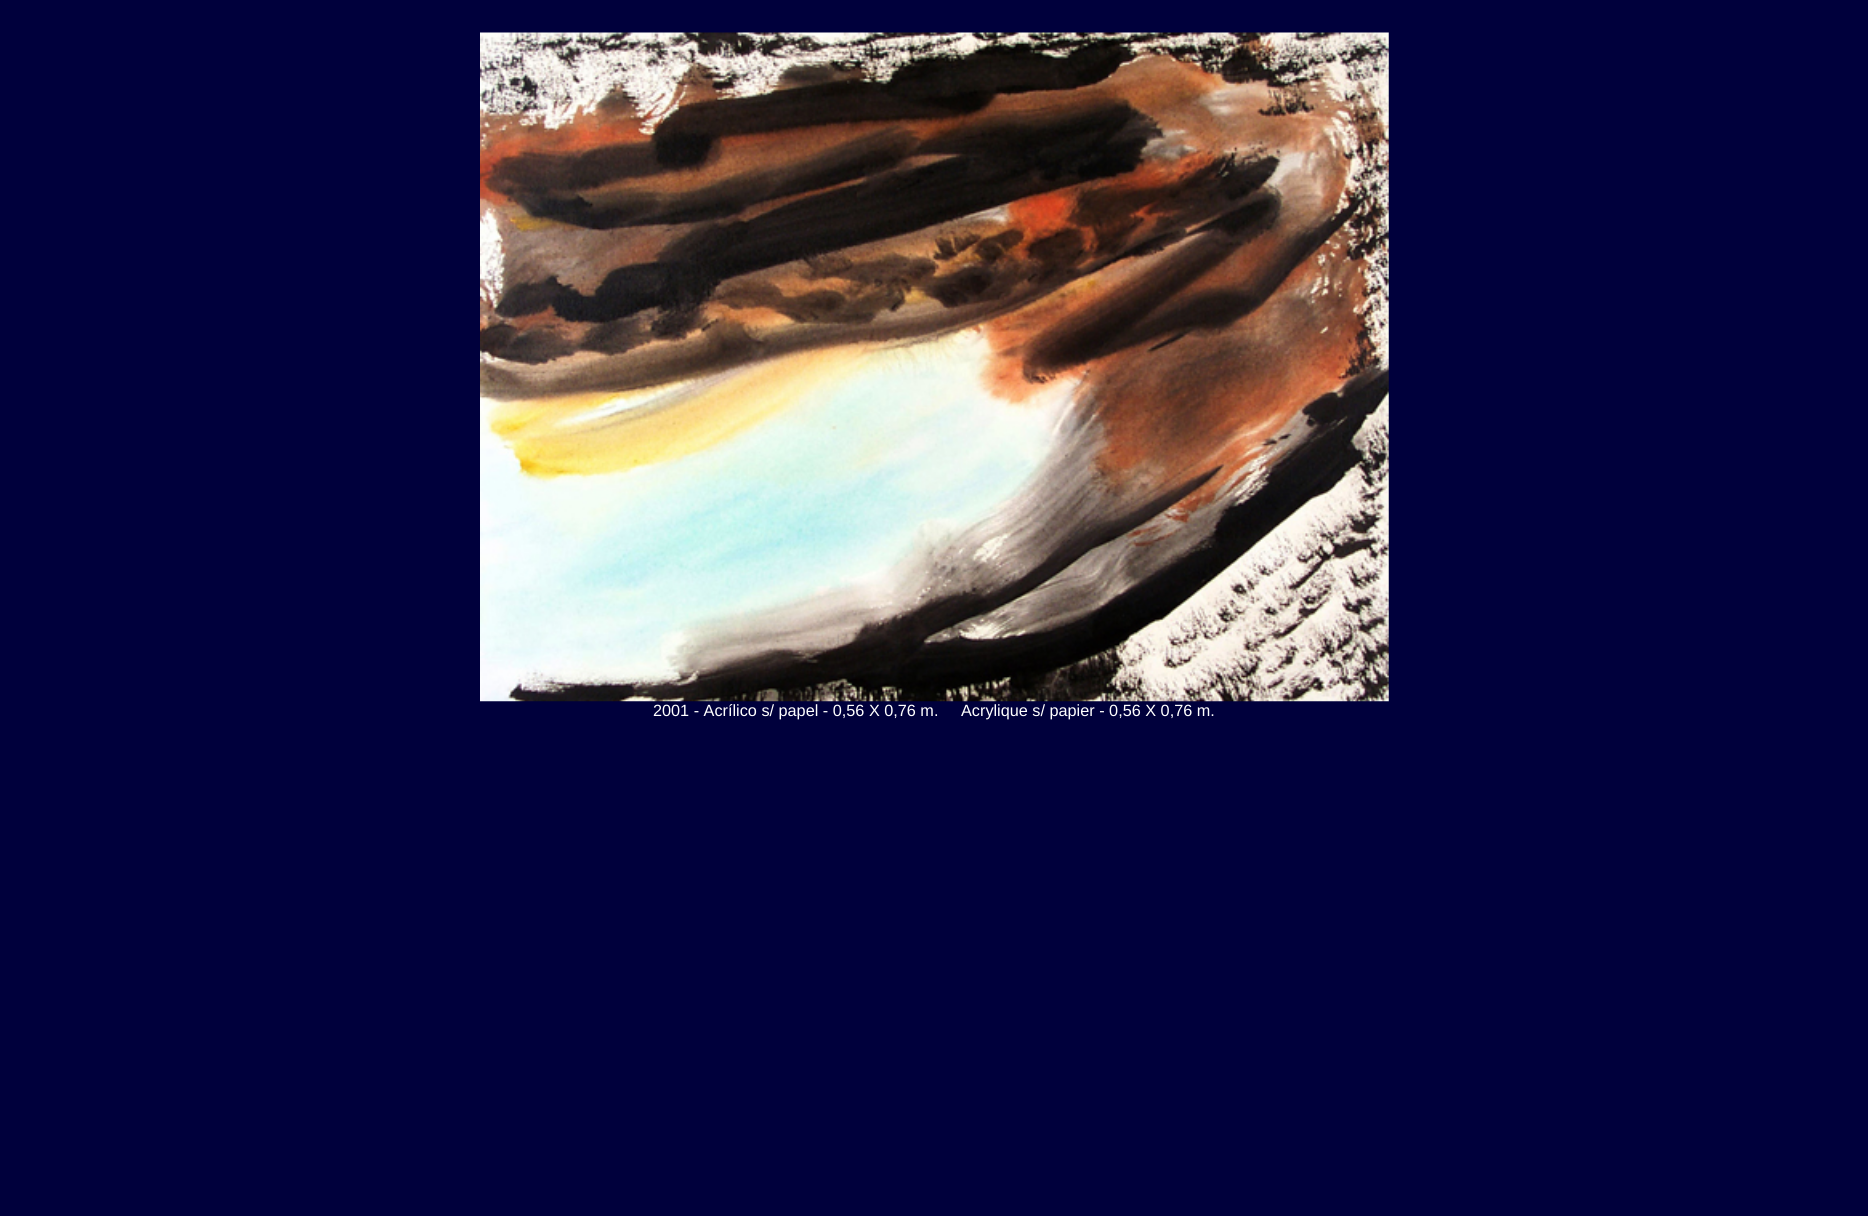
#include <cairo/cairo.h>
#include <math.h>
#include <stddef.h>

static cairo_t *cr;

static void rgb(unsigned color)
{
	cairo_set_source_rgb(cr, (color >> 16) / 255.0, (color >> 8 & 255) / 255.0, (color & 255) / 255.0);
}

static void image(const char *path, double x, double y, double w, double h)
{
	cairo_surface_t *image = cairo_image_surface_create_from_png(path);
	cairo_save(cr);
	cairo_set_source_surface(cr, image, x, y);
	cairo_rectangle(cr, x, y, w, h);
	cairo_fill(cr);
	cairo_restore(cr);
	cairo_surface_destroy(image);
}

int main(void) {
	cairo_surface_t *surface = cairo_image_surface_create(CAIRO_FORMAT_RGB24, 1868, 1216);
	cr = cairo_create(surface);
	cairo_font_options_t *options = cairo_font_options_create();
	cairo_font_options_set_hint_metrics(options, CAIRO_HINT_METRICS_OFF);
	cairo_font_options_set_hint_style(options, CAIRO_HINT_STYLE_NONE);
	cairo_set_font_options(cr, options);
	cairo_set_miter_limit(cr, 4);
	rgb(0x00003c);
	cairo_paint(cr);
	image("img/1.png", 480, 32, 909, 670);
	cairo_select_font_face(cr, "Liberation Sans", CAIRO_FONT_SLANT_NORMAL, CAIRO_FONT_WEIGHT_NORMAL);
	cairo_set_font_size(cr, 16.25);
	rgb(0xffffff);
	cairo_move_to(cr, 653, 716);
	cairo_show_text(cr, "2001 - Acrílico s/ papel - 0,56 X 0,76 m.");
	cairo_move_to(cr, 961, 716);
	cairo_show_text(cr, "Acrylique s/ papier - 0,56 X 0,76 m.");
	cairo_surface_write_to_png(surface, "page.png");
	cairo_font_options_destroy(options);
	cairo_destroy(cr);
	cairo_surface_destroy(surface);
	return 0;
}
